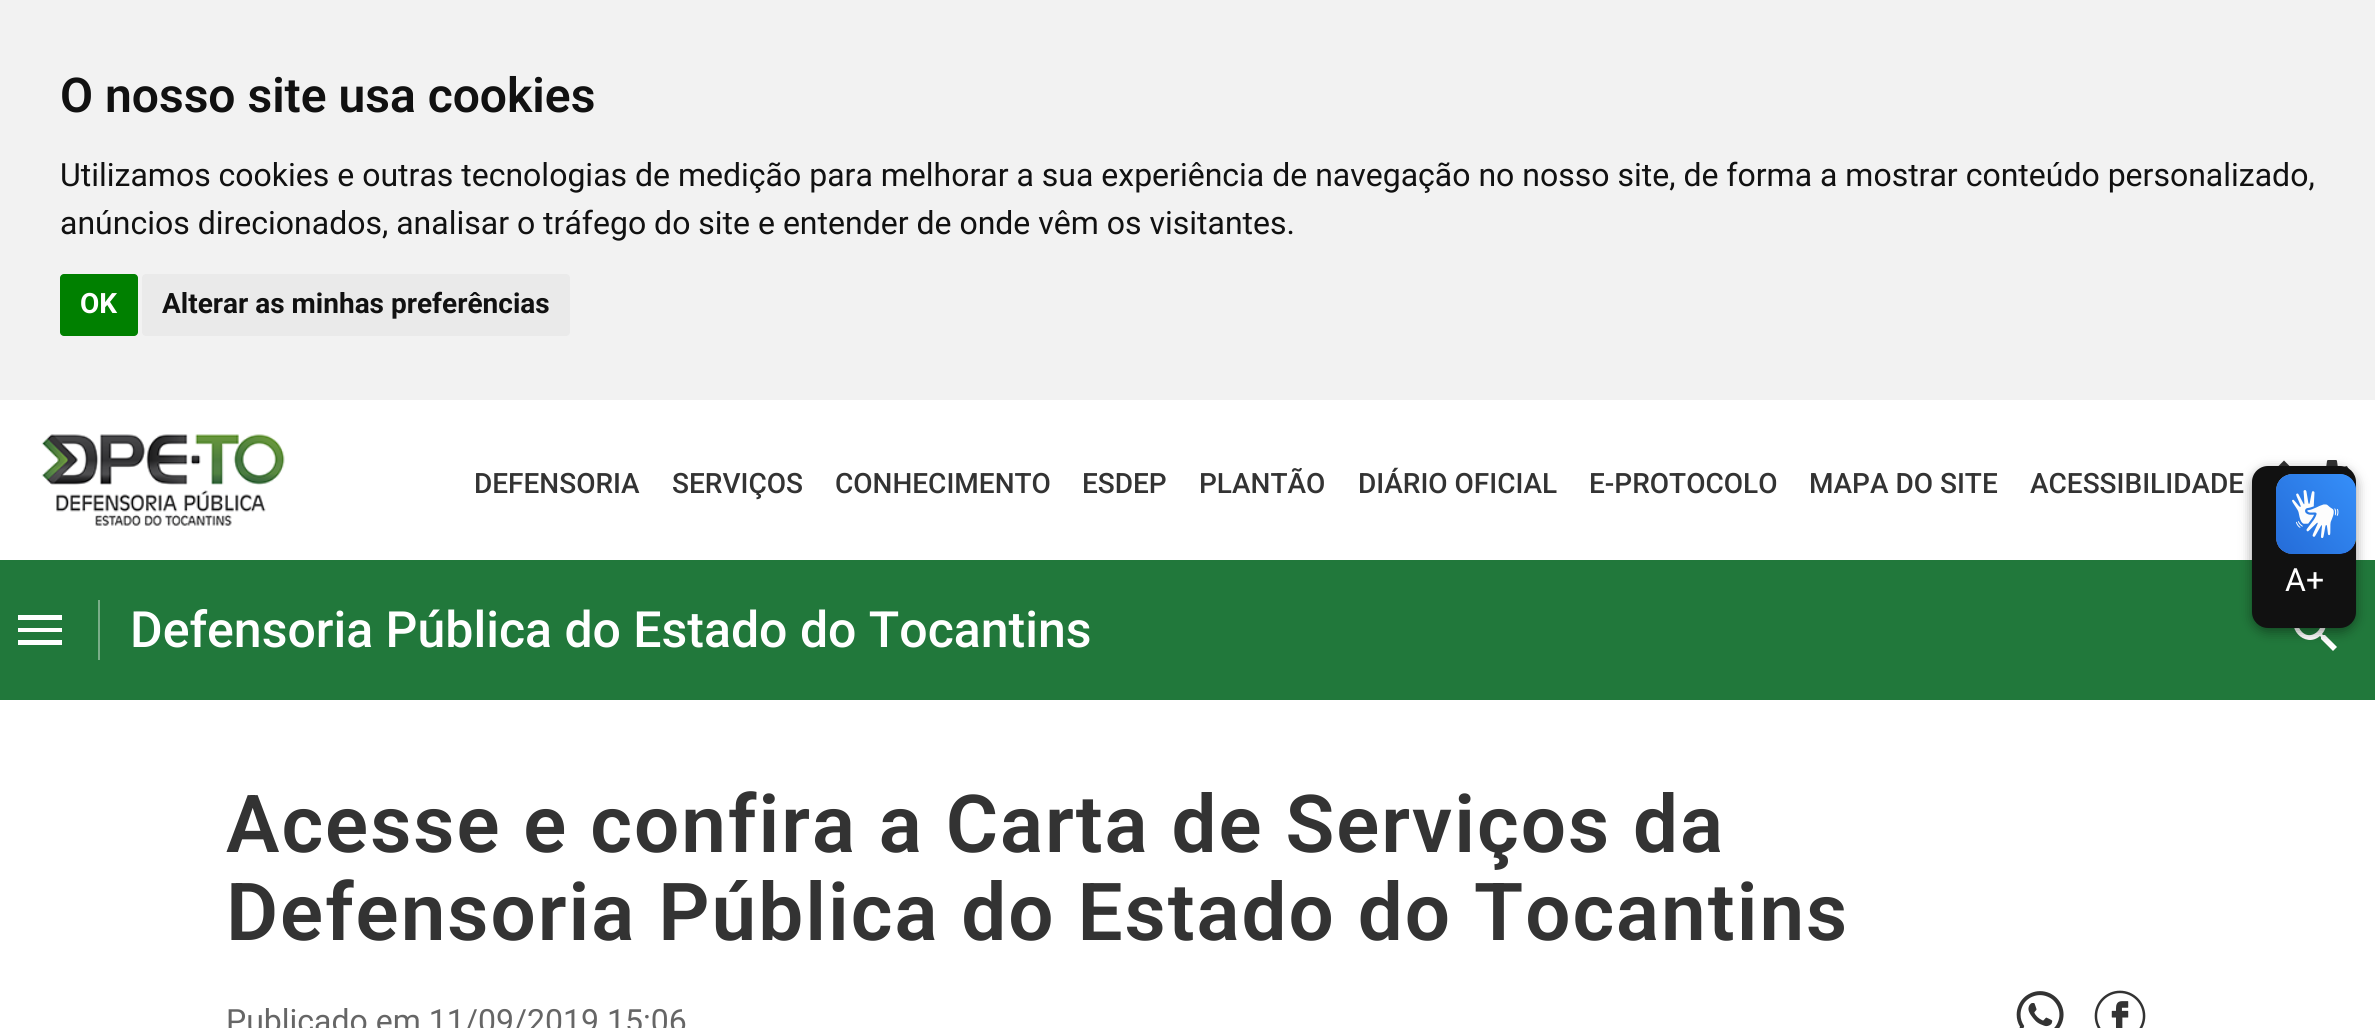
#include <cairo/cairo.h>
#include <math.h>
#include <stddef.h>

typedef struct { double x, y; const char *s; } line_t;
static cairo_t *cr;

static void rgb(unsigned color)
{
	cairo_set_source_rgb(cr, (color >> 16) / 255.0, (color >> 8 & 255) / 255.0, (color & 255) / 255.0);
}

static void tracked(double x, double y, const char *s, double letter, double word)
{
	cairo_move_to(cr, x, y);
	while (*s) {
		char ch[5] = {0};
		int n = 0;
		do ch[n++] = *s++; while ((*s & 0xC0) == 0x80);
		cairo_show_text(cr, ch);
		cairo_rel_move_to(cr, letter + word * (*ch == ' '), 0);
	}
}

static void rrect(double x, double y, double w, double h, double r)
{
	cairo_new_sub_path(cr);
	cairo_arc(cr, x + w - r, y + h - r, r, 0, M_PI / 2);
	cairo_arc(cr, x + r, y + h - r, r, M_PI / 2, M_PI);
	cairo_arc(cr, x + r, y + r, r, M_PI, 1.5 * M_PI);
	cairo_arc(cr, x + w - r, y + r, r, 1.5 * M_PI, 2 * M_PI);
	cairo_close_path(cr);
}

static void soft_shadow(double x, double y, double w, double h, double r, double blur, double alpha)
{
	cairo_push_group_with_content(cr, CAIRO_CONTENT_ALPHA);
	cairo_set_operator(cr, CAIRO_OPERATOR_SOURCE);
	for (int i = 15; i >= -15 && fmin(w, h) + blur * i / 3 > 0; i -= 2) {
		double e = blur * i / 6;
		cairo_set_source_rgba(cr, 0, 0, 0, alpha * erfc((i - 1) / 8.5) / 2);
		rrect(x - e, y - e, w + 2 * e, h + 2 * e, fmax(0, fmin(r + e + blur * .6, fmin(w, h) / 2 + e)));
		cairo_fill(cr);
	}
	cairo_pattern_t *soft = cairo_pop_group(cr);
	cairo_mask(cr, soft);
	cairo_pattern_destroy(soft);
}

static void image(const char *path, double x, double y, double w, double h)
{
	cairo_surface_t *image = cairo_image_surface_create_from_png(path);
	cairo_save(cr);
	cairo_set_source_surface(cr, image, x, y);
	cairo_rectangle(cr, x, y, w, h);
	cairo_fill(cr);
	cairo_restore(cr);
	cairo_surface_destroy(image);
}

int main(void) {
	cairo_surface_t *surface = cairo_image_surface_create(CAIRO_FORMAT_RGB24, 2375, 1028);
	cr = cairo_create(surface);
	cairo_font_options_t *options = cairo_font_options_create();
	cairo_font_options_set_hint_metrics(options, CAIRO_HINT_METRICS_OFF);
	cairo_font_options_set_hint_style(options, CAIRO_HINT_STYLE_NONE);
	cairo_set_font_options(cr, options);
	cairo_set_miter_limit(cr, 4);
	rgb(0xffffff);
	cairo_paint(cr);
	rgb(0xf2f2f2);
	cairo_rectangle(cr, 0, 0, 2375, 400);
	cairo_fill(cr);
	rgb(0x008000);
	rrect(60, 274, 78, 62, 4);
	cairo_fill(cr);
	rgb(0xeaeaea);
	rrect(142, 274, 428, 62, 4);
	cairo_fill(cr);
	image("img/1.png", 41, 434, 244, 92);
	image("img/2.png", 2326, 460, 24, 10);
	image("img/3.png", 2278, 460, 12, 6);
	rgb(0x21783b);
	cairo_rectangle(cr, 0, 560, 2375, 140);
	cairo_fill(cr);
	rgb(0xffffff);
	cairo_new_path(cr);
	cairo_move_to(cr, 2302, 632);
	cairo_curve_to(cr, 2312, 642, 2328, 626, 2318, 616);
	cairo_curve_to(cr, 2307, 605, 2291, 621, 2302, 632);
	cairo_close_path(cr);
	cairo_move_to(cr, 2325, 635);
	cairo_line_to(cr, 2337, 647);
	cairo_line_to(cr, 2333, 651);
	cairo_line_to(cr, 2321, 639);
	cairo_line_to(cr, 2321, 637);
	cairo_line_to(cr, 2320, 636);
	cairo_curve_to(cr, 2305, 649, 2284, 627, 2298, 612);
	cairo_curve_to(cr, 2313, 597, 2335, 619, 2322, 634);
	cairo_line_to(cr, 2323, 635);
	cairo_close_path(cr);
	cairo_fill(cr);
	rgb(0x000000);
	soft_shadow(2252, 470, 104, 162, 16, 6, 0.4);
	rgb(0x111111);
	rrect(2252, 466, 104, 162, 16);
	cairo_fill(cr);
	image("img/4.png", 2276, 474, 80, 80);
	image("img/5.png", 2276, 474, 80, 80);
	rgb(0x7aae89);
	cairo_rectangle(cr, 98, 600, 2, 60);
	cairo_fill(cr);
	rgb(0xffffff);
	cairo_new_path(cr);
	cairo_move_to(cr, 18, 615);
	cairo_line_to(cr, 62, 615);
	cairo_line_to(cr, 62, 620);
	cairo_line_to(cr, 18, 620);
	cairo_close_path(cr);
	cairo_move_to(cr, 18, 632);
	cairo_line_to(cr, 18, 628);
	cairo_line_to(cr, 62, 628);
	cairo_line_to(cr, 62, 632);
	cairo_close_path(cr);
	cairo_move_to(cr, 18, 645);
	cairo_line_to(cr, 18, 640);
	cairo_line_to(cr, 62, 640);
	cairo_line_to(cr, 62, 645);
	cairo_close_path(cr);
	cairo_fill(cr);
	image("img/6.png", 2016, 991, 48, 37);
	image("img/7.png", 2094, 990, 52, 38);
	cairo_select_font_face(cr, "Roboto SemiBold", CAIRO_FONT_SLANT_NORMAL, CAIRO_FONT_WEIGHT_NORMAL);
	cairo_set_font_size(cr, 48);
	rgb(0x111111);
	cairo_move_to(cr, 60, 112);
	cairo_show_text(cr, "O nosso site usa cookies");
	cairo_select_font_face(cr, "Roboto", CAIRO_FONT_SLANT_NORMAL, CAIRO_FONT_WEIGHT_NORMAL);
	cairo_set_font_size(cr, 32);
	cairo_move_to(cr, 60, 186);
	cairo_show_text(cr, "Utilizamos cookies e outras tecnologias de medição para melhorar a sua experiência de navegação no nosso site, de forma a mostrar conteúdo personalizado,");
	cairo_move_to(cr, 60, 234);
	cairo_show_text(cr, "anúncios direcionados, analisar o tráfego do site e entender de onde vêm os visitantes.");
	cairo_select_font_face(cr, "Roboto", CAIRO_FONT_SLANT_NORMAL, CAIRO_FONT_WEIGHT_BOLD);
	cairo_set_font_size(cr, 28);
	rgb(0xffffff);
	cairo_move_to(cr, 80, 313);
	cairo_show_text(cr, "OK");
	rgb(0x111111);
	cairo_move_to(cr, 162, 313);
	cairo_show_text(cr, "Alterar as minhas preferências");
	cairo_select_font_face(cr, "Roboto Medium", CAIRO_FONT_SLANT_NORMAL, CAIRO_FONT_WEIGHT_NORMAL);
	rgb(0x333333);
	{
		static const line_t items[] = {
			{474, 493, "DEFENSORIA"},
			{672, 493, "SERVIÇOS"},
			{835, 493, "CONHECIMENTO"},
			{1082, 493, "ESDEP"},
			{1199, 493, "PLANTÃO"},
			{1358, 493, "DIÁRIO OFICIAL"},
			{1589, 493, "E-PROTOCOLO"},
			{1809, 493, "MAPA DO SITE"},
			{2030, 493, "ACESSIBILIDADE"},
		};
		for (size_t i = 0; i < sizeof items / sizeof *items; i++) {
			cairo_move_to(cr, items[i].x, items[i].y);
			cairo_show_text(cr, items[i].s);
		}
	}
	cairo_select_font_face(cr, "Roboto", CAIRO_FONT_SLANT_NORMAL, CAIRO_FONT_WEIGHT_NORMAL);
	cairo_set_font_size(cr, 32);
	rgb(0xffffff);
	cairo_move_to(cr, 2285, 591);
	cairo_show_text(cr, "A+");
	cairo_select_font_face(cr, "Roboto Medium", CAIRO_FONT_SLANT_NORMAL, CAIRO_FONT_WEIGHT_NORMAL);
	cairo_set_font_size(cr, 50);
	cairo_move_to(cr, 130, 647);
	cairo_show_text(cr, "Defensoria Pública do Estado do Tocantins");
	cairo_select_font_face(cr, "Roboto SemiBold", CAIRO_FONT_SLANT_NORMAL, CAIRO_FONT_WEIGHT_NORMAL);
	cairo_set_font_size(cr, 80);
	rgb(0x333333);
	tracked(226, 852, "Acesse e confira a Carta de Serviços da", 2, 0);
	tracked(226, 940, "Defensoria Pública do Estado do Tocantins", 2, 0);
	cairo_select_font_face(cr, "Roboto", CAIRO_FONT_SLANT_NORMAL, CAIRO_FONT_WEIGHT_NORMAL);
	cairo_set_font_size(cr, 32);
	rgb(0x666666);
	cairo_move_to(cr, 226, 1032);
	cairo_show_text(cr, "Publicado em 11/09/2019 15:06");
	cairo_surface_write_to_png(surface, "page.png");
	cairo_font_options_destroy(options);
	cairo_destroy(cr);
	cairo_surface_destroy(surface);
	return 0;
}
